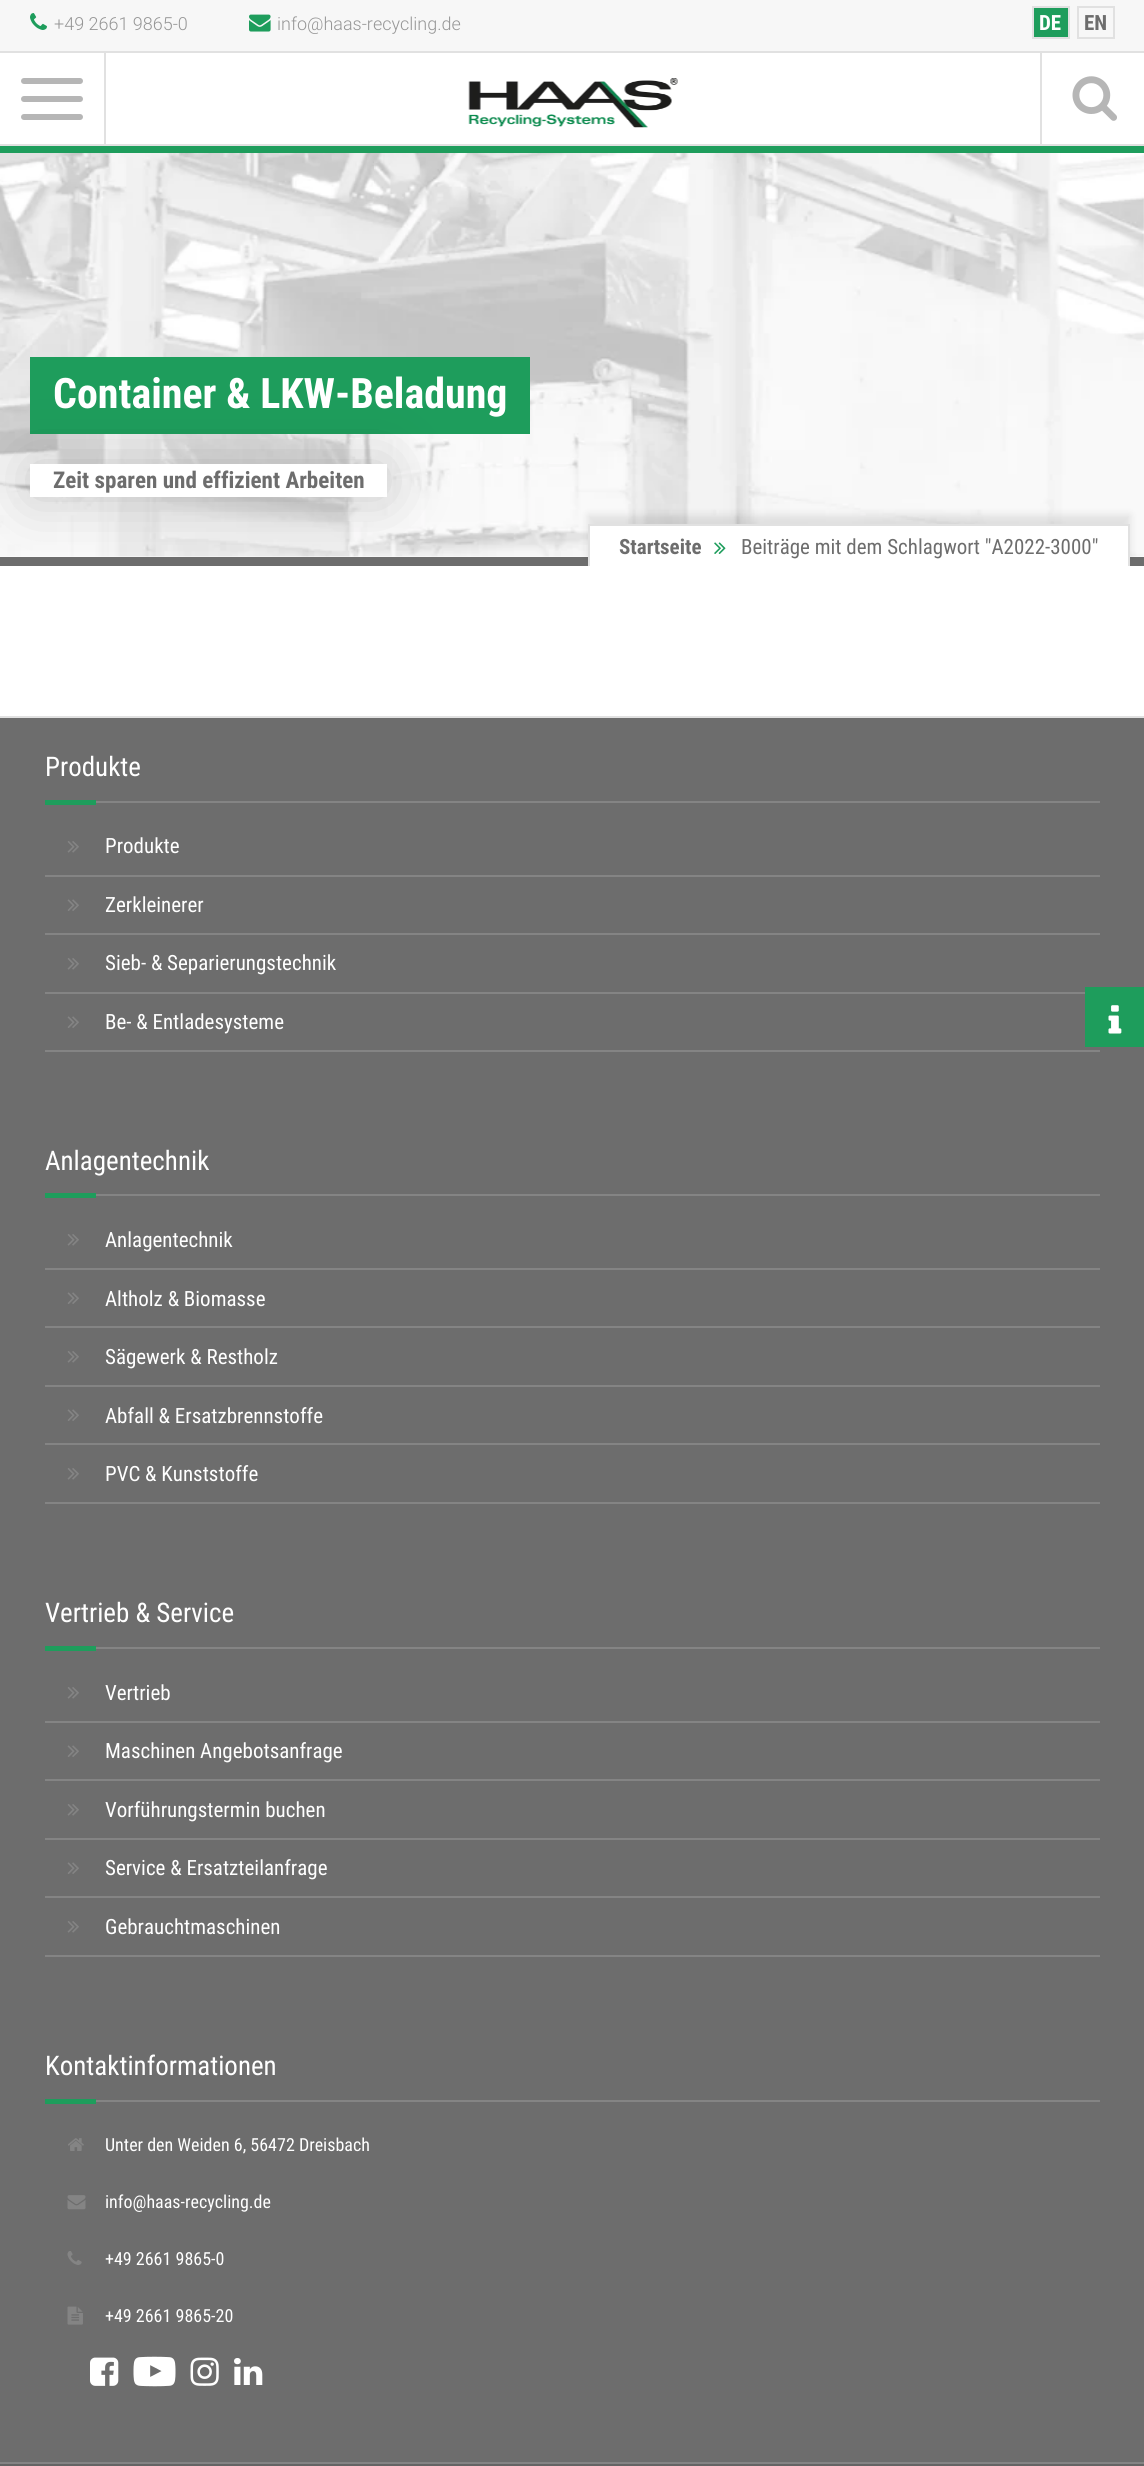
#include <cairo/cairo.h>
#include <math.h>
#include <stddef.h>

typedef struct { double x, y; const char *s; } line_t;
typedef struct { double x, y, w, h; unsigned color; } box_t;
static cairo_t *cr;

static void rgb(unsigned color)
{
	cairo_set_source_rgb(cr, (color >> 16) / 255.0, (color >> 8 & 255) / 255.0, (color & 255) / 255.0);
}

static void rrect(double x, double y, double w, double h, double r)
{
	cairo_new_sub_path(cr);
	cairo_arc(cr, x + w - r, y + h - r, r, 0, M_PI / 2);
	cairo_arc(cr, x + r, y + h - r, r, M_PI / 2, M_PI);
	cairo_arc(cr, x + r, y + r, r, M_PI, 1.5 * M_PI);
	cairo_arc(cr, x + w - r, y + r, r, 1.5 * M_PI, 2 * M_PI);
	cairo_close_path(cr);
}

static void soft_shadow(double x, double y, double w, double h, double r, double blur, double alpha)
{
	cairo_push_group_with_content(cr, CAIRO_CONTENT_ALPHA);
	cairo_set_operator(cr, CAIRO_OPERATOR_SOURCE);
	for (int i = 15; i >= -15 && fmin(w, h) + blur * i / 3 > 0; i -= 2) {
		double e = blur * i / 6;
		cairo_set_source_rgba(cr, 0, 0, 0, alpha * erfc((i - 1) / 8.5) / 2);
		rrect(x - e, y - e, w + 2 * e, h + 2 * e, fmax(0, fmin(r + e + blur * .6, fmin(w, h) / 2 + e)));
		cairo_fill(cr);
	}
	cairo_pattern_t *soft = cairo_pop_group(cr);
	cairo_mask(cr, soft);
	cairo_pattern_destroy(soft);
}

static void image(const char *path, double x, double y, double w, double h)
{
	cairo_surface_t *image = cairo_image_surface_create_from_png(path);
	cairo_save(cr);
	cairo_set_source_surface(cr, image, x, y);
	cairo_rectangle(cr, x, y, w, h);
	cairo_fill(cr);
	cairo_restore(cr);
	cairo_surface_destroy(image);
}

int main(void) {
	cairo_surface_t *surface = cairo_image_surface_create(CAIRO_FORMAT_RGB24, 1144, 2466);
	cr = cairo_create(surface);
	cairo_font_options_t *options = cairo_font_options_create();
	cairo_font_options_set_hint_metrics(options, CAIRO_HINT_METRICS_OFF);
	cairo_font_options_set_hint_style(options, CAIRO_HINT_STYLE_NONE);
	cairo_set_font_options(cr, options);
	cairo_set_miter_limit(cr, 4);
	rgb(0xffffff);
	cairo_paint(cr);
	rgb(0xf7f7f7);
	cairo_rectangle(cr, 0, 0, 1144, 51);
	cairo_fill(cr);
	image("img/1.png", 30, 13, 17, 17);
	image("img/2.png", 249, 14, 22, 18);
	rgb(0x1e9d5c);
	cairo_rectangle(cr, 1033, 7, 36, 31);
	cairo_fill_preserve(cr);
	rgb(0xe1e1e1);
	cairo_stroke(cr);
	cairo_rectangle(cr, 1078, 7, 36, 31);
	cairo_stroke(cr);
	{
		static const box_t items[] = {
			{0, 51, 1144, 2, 0xe1e1e1},
			{0, 144, 1144, 2, 0xe1e1e1},
			{104, 53, 2, 91, 0xe1e1e1},
		};
		for (size_t i = 0; i < sizeof items / sizeof *items; i++) {
			rgb(items[i].color);
			cairo_rectangle(cr, items[i].x, items[i].y, items[i].w, items[i].h);
			cairo_fill(cr);
		}
	}
	rgb(0xb6b6b6);
	rrect(21, 78, 62, 6, 3);
	cairo_fill(cr);
	rrect(21, 96, 62, 6, 3);
	cairo_fill(cr);
	rrect(21, 114, 62, 6, 3);
	cairo_fill(cr);
	image("img/3.png", 468, 78, 210, 50);
	rgb(0xe1e1e1);
	cairo_rectangle(cr, 1040, 53, 2, 91);
	cairo_fill(cr);
	image("img/4.png", 1072, 76, 45, 45);
	rgb(0x1e9d5c);
	cairo_rectangle(cr, 0, 146, 1144, 7);
	cairo_fill(cr);
	image("img/5.png", 0, 153, 1144, 404);
	rgb(0x6d6d6d);
	cairo_rectangle(cr, 0, 557, 1144, 9);
	cairo_fill(cr);
	rgb(0x1e9d5c);
	cairo_rectangle(cr, 30, 357, 500, 77);
	cairo_fill(cr);
	rgb(0x000000);
	soft_shadow(30, 464, 357, 33, 0, 30, 0.2);
	rgb(0xffffff);
	cairo_rectangle(cr, 30, 464, 357, 33);
	cairo_fill(cr);
	rgb(0x000000);
	soft_shadow(588, 515, 542, 42, 0, 4, 0.1);
	{
		static const box_t items[] = {
			{590, 526, 538, 40, 0xffffff},
			{588, 524, 542, 2, 0xe1e1e1},
			{1128, 524, 2, 42, 0xe1e1e1},
			{588, 524, 2, 42, 0xe1e1e1},
		};
		for (size_t i = 0; i < sizeof items / sizeof *items; i++) {
			rgb(items[i].color);
			cairo_rectangle(cr, items[i].x, items[i].y, items[i].w, items[i].h);
			cairo_fill(cr);
		}
	}
	image("img/6.png", 714, 542, 12, 12);
	{
		static const box_t items[] = {
			{0, 718, 1144, 1744, 0x6d6d6d},
			{0, 716, 1144, 2, 0xe1e1e1},
			{96, 801, 1004, 2, 0x848484},
			{45, 800, 51, 5, 0x1e9d5c},
			{45, 875, 1055, 2, 0x848484},
		};
		for (size_t i = 0; i < sizeof items / sizeof *items; i++) {
			rgb(items[i].color);
			cairo_rectangle(cr, items[i].x, items[i].y, items[i].w, items[i].h);
			cairo_fill(cr);
		}
	}
	image("img/7.png", 67, 841, 12, 12);
	cairo_rectangle(cr, 45, 933, 1055, 2);
	cairo_fill(cr);
	image("img/8.png", 67, 899, 12, 12);
	cairo_rectangle(cr, 45, 992, 1040, 2);
	cairo_fill(cr);
	image("img/7.png", 67, 958, 12, 12);
	cairo_rectangle(cr, 45, 1050, 1055, 2);
	cairo_fill(cr);
	image("img/8.png", 67, 1016, 12, 12);
	{
		static const box_t items[] = {
			{96, 1194, 1004, 2, 0x848484},
			{45, 1193, 51, 5, 0x1e9d5c},
			{45, 1268, 1055, 2, 0x848484},
		};
		for (size_t i = 0; i < sizeof items / sizeof *items; i++) {
			rgb(items[i].color);
			cairo_rectangle(cr, items[i].x, items[i].y, items[i].w, items[i].h);
			cairo_fill(cr);
		}
	}
	image("img/7.png", 67, 1234, 12, 12);
	cairo_rectangle(cr, 45, 1326, 1055, 2);
	cairo_fill(cr);
	image("img/8.png", 67, 1292, 12, 12);
	cairo_rectangle(cr, 45, 1385, 1055, 2);
	cairo_fill(cr);
	image("img/7.png", 67, 1351, 12, 12);
	cairo_rectangle(cr, 45, 1443, 1055, 2);
	cairo_fill(cr);
	image("img/8.png", 67, 1409, 12, 12);
	cairo_rectangle(cr, 45, 1502, 1055, 2);
	cairo_fill(cr);
	image("img/7.png", 67, 1468, 12, 12);
	{
		static const box_t items[] = {
			{96, 1647, 1004, 2, 0x848484},
			{45, 1646, 51, 5, 0x1e9d5c},
			{45, 1721, 1055, 2, 0x848484},
		};
		for (size_t i = 0; i < sizeof items / sizeof *items; i++) {
			rgb(items[i].color);
			cairo_rectangle(cr, items[i].x, items[i].y, items[i].w, items[i].h);
			cairo_fill(cr);
		}
	}
	image("img/7.png", 67, 1687, 12, 12);
	cairo_rectangle(cr, 45, 1779, 1055, 2);
	cairo_fill(cr);
	image("img/8.png", 67, 1745, 12, 12);
	cairo_rectangle(cr, 45, 1838, 1055, 2);
	cairo_fill(cr);
	image("img/7.png", 67, 1804, 12, 12);
	cairo_rectangle(cr, 45, 1896, 1055, 2);
	cairo_fill(cr);
	image("img/8.png", 67, 1862, 12, 12);
	cairo_rectangle(cr, 45, 1955, 1055, 2);
	cairo_fill(cr);
	image("img/7.png", 67, 1921, 12, 12);
	cairo_rectangle(cr, 96, 2100, 1004, 2);
	cairo_fill(cr);
	rgb(0x1e9d5c);
	cairo_rectangle(cr, 45, 2099, 51, 5);
	cairo_fill(cr);
	image("img/9.png", 68, 2138, 16, 13);
	image("img/10.png", 67, 2195, 19, 15);
	image("img/11.png", 67, 2251, 15, 14);
	image("img/12.png", 67, 2306, 16, 19);
	image("img/13.png", 90, 2357, 29, 29);
	image("img/14.png", 133, 2356, 43, 31);
	image("img/15.png", 190, 2357, 29, 29);
	image("img/16.png", 234, 2358, 29, 27);
	cairo_rectangle(cr, 1085, 987, 59, 60);
	cairo_fill(cr);
	image("img/17.png", 1108, 1005, 14, 29);
	rgb(0x646464);
	cairo_rectangle(cr, 0, 2464, 1144, 2);
	cairo_fill(cr);
	rgb(0x848484);
	cairo_rectangle(cr, 0, 2462, 1144, 2);
	cairo_fill(cr);
	cairo_select_font_face(cr, "Roboto Light", CAIRO_FONT_SLANT_NORMAL, CAIRO_FONT_WEIGHT_NORMAL);
	cairo_set_font_size(cr, 18);
	rgb(0x969696);
	cairo_move_to(cr, 54, 30);
	cairo_show_text(cr, "+49 2661 9865-0");
	cairo_move_to(cr, 277, 30);
	cairo_show_text(cr, "info@haas-recycling.de");
	cairo_select_font_face(cr, "Roboto Condensed", CAIRO_FONT_SLANT_NORMAL, CAIRO_FONT_WEIGHT_BOLD);
	cairo_set_font_size(cr, 21);
	rgb(0xffffff);
	cairo_move_to(cr, 1039, 30);
	cairo_show_text(cr, "DE");
	rgb(0x6d6d6d);
	cairo_move_to(cr, 1084, 30);
	cairo_show_text(cr, "EN");
	cairo_set_font_size(cr, 42);
	rgb(0xffffff);
	cairo_move_to(cr, 53, 408);
	cairo_show_text(cr, "Container & LKW-Beladung");
	cairo_set_font_size(cr, 23.1);
	rgb(0x6d6d6d);
	cairo_move_to(cr, 53, 488);
	cairo_show_text(cr, "Zeit sparen und effizient Arbeiten");
	cairo_set_font_size(cr, 21);
	cairo_move_to(cr, 619, 554);
	cairo_show_text(cr, "Startseite");
	cairo_select_font_face(cr, "Roboto Condensed", CAIRO_FONT_SLANT_NORMAL, CAIRO_FONT_WEIGHT_NORMAL);
	cairo_move_to(cr, 741, 554);
	cairo_show_text(cr, "Beiträge mit dem Schlagwort \"A2022-3000\"");
	cairo_set_font_size(cr, 27);
	rgb(0xffffff);
	cairo_move_to(cr, 45, 776);
	cairo_show_text(cr, "Produkte");
	cairo_set_font_size(cr, 21);
	{
		static const line_t items[] = {
			{105, 853, "Produkte"},
			{105, 912, "Zerkleinerer"},
			{105, 970, "Sieb- & Separierungstechnik"},
			{105, 1029, "Be- & Entladesysteme"},
		};
		for (size_t i = 0; i < sizeof items / sizeof *items; i++) {
			cairo_move_to(cr, items[i].x, items[i].y);
			cairo_show_text(cr, items[i].s);
		}
	}
	cairo_set_font_size(cr, 27);
	cairo_move_to(cr, 45, 1170);
	cairo_show_text(cr, "Anlagentechnik");
	cairo_set_font_size(cr, 21);
	{
		static const line_t items[] = {
			{105, 1247, "Anlagentechnik"},
			{105, 1306, "Altholz & Biomasse"},
			{105, 1364, "Sägewerk & Restholz"},
			{105, 1423, "Abfall & Ersatzbrennstoffe"},
			{105, 1481, "PVC & Kunststoffe"},
		};
		for (size_t i = 0; i < sizeof items / sizeof *items; i++) {
			cairo_move_to(cr, items[i].x, items[i].y);
			cairo_show_text(cr, items[i].s);
		}
	}
	cairo_set_font_size(cr, 27);
	cairo_move_to(cr, 45, 1622);
	cairo_show_text(cr, "Vertrieb & Service");
	cairo_set_font_size(cr, 21);
	{
		static const line_t items[] = {
			{105, 1700, "Vertrieb"},
			{105, 1758, "Maschinen Angebotsanfrage"},
			{105, 1817, "Vorführungstermin buchen"},
			{105, 1875, "Service & Ersatzteilanfrage"},
			{105, 1934, "Gebrauchtmaschinen"},
		};
		for (size_t i = 0; i < sizeof items / sizeof *items; i++) {
			cairo_move_to(cr, items[i].x, items[i].y);
			cairo_show_text(cr, items[i].s);
		}
	}
	cairo_set_font_size(cr, 27);
	cairo_move_to(cr, 45, 2075);
	cairo_show_text(cr, "Kontaktinformationen");
	cairo_set_font_size(cr, 18);
	{
		static const line_t items[] = {
			{105, 2151, "Unter den Weiden 6, 56472 Dreisbach"},
			{105, 2208, "info@haas-recycling.de"},
			{105, 2265, "+49 2661 9865-0"},
			{105, 2322, "+49 2661 9865-20"},
		};
		for (size_t i = 0; i < sizeof items / sizeof *items; i++) {
			cairo_move_to(cr, items[i].x, items[i].y);
			cairo_show_text(cr, items[i].s);
		}
	}
	cairo_surface_write_to_png(surface, "page.png");
	cairo_font_options_destroy(options);
	cairo_destroy(cr);
	cairo_surface_destroy(surface);
	return 0;
}
